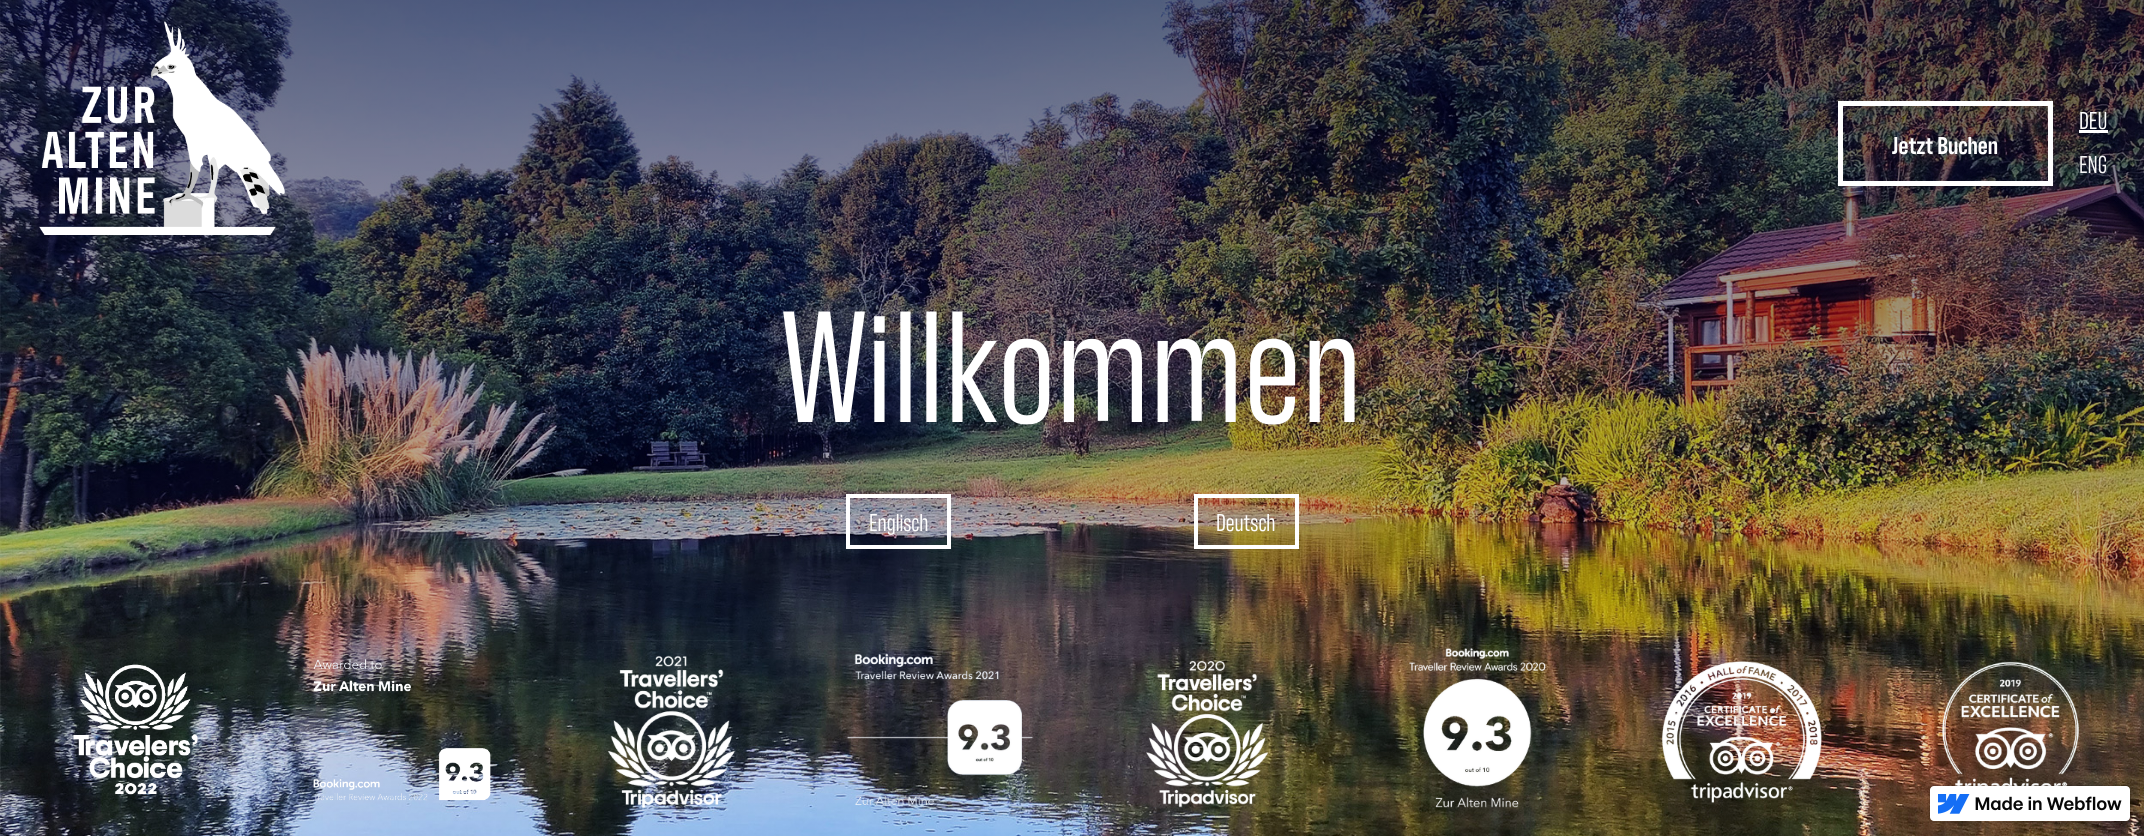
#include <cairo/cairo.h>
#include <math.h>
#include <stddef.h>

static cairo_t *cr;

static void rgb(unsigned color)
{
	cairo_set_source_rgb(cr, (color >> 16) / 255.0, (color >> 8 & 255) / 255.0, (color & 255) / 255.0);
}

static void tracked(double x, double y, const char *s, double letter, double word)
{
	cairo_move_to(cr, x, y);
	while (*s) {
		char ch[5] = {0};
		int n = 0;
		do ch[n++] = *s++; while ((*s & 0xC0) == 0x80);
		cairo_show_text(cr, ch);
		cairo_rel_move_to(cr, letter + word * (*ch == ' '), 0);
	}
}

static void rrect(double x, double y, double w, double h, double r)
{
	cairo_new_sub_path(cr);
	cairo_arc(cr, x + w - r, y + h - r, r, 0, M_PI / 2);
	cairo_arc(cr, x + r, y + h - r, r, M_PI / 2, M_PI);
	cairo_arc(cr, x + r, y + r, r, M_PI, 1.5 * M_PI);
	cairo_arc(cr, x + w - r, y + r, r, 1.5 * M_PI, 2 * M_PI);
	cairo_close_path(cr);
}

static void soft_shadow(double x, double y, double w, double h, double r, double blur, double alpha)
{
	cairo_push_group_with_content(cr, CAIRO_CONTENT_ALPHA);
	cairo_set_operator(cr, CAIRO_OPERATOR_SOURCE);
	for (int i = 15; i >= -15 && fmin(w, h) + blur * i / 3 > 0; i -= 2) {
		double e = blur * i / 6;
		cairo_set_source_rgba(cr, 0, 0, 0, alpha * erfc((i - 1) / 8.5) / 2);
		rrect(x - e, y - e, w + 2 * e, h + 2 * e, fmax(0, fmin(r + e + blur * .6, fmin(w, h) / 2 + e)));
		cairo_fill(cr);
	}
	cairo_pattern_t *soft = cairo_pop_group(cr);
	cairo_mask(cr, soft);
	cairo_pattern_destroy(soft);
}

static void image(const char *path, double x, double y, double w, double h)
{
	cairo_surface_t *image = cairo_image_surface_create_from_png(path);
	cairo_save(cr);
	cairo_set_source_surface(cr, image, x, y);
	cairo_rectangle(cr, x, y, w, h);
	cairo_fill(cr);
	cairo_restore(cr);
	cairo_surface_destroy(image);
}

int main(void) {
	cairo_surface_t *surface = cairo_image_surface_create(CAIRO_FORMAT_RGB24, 2144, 836);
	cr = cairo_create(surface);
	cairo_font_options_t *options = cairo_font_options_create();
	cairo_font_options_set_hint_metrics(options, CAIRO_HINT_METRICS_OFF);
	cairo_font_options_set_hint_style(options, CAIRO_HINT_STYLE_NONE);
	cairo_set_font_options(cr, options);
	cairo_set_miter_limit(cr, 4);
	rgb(0xffffff);
	cairo_paint(cr);
	image("img/2.png", 0, 0, 2144, 836);
	image("img/1.png", 39, 21, 246, 214);
	cairo_rectangle(cr, 1840.5, 103.5, 210, 80);
	rgb(0xffffff);
	cairo_set_line_width(cr, 5);
	cairo_stroke(cr);
	cairo_rectangle(cr, 2079, 130, 29, 3);
	cairo_fill(cr);
	cairo_rectangle(cr, 848, 496, 101, 51);
	cairo_set_line_width(cr, 4);
	cairo_stroke(cr);
	cairo_rectangle(cr, 1196, 496, 101, 51);
	cairo_stroke(cr);
	image("img/3.png", 73, 664, 125, 131);
	image("img/4.png", 313, 659, 178, 142);
	image("img/5.png", 597, 640, 146, 168);
	image("img/6.png", 847, 653, 186, 153);
	image("img/7.png", 1146, 661, 123, 147);
	image("img/8.png", 1409, 648, 137, 160);
	image("img/9.png", 1662, 661, 160, 142);
	image("img/10.png", 1942, 661, 137, 125);
	rgb(0x000000);
	soft_shadow(1930, 788, 200, 35, 4, 2, 0.1);
	rrect(1929.5, 785.5, 201, 37, 4.5);
	cairo_set_source_rgba(cr, 0, 0, 0, 0.1);
	cairo_set_line_width(cr, 1);
	cairo_stroke(cr);
	rgb(0xffffff);
	rrect(1930, 786, 200, 35, 4);
	cairo_fill(cr);
	image("img/11.png", 1938, 794, 32, 20);
	image("img/12.png", 1975, 796, 147, 15);
	cairo_select_font_face(cr, "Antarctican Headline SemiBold", CAIRO_FONT_SLANT_NORMAL, CAIRO_FONT_WEIGHT_NORMAL);
	cairo_set_font_size(cr, 25);
	cairo_move_to(cr, 1892, 154);
	cairo_show_text(cr, "Jetzt Buchen");
	cairo_select_font_face(cr, "Antarctican Headline", CAIRO_FONT_SLANT_NORMAL, CAIRO_FONT_WEIGHT_NORMAL);
	cairo_move_to(cr, 2079, 129);
	cairo_show_text(cr, "DEU");
	rgb(0xf7f7f7);
	cairo_move_to(cr, 2079, 173);
	cairo_show_text(cr, "ENG");
	cairo_set_font_size(cr, 162.5);
	rgb(0xffffff);
	tracked(782, 422, "Willkommen", 1.25, 0);
	cairo_set_font_size(cr, 25);
	cairo_move_to(cr, 869, 531);
	cairo_show_text(cr, "Englisch");
	cairo_move_to(cr, 1216, 531);
	cairo_show_text(cr, "Deutsch");
	cairo_surface_write_to_png(surface, "page.png");
	cairo_font_options_destroy(options);
	cairo_destroy(cr);
	cairo_surface_destroy(surface);
	return 0;
}
